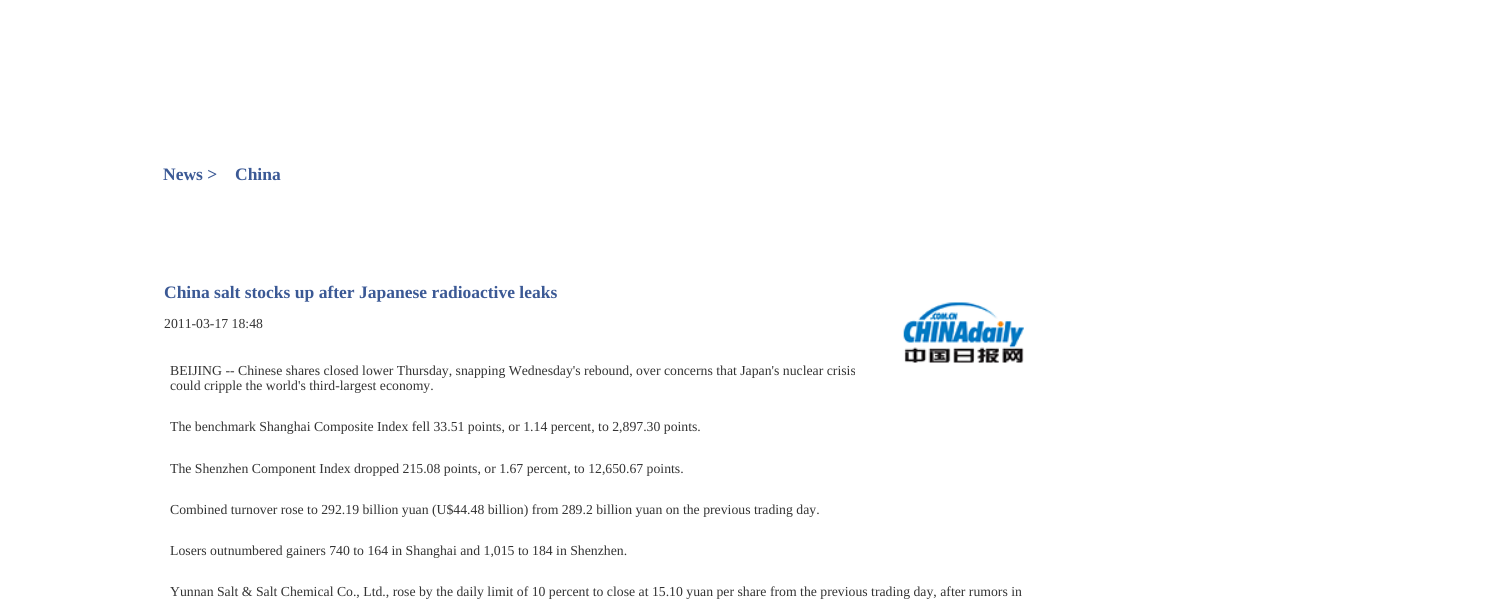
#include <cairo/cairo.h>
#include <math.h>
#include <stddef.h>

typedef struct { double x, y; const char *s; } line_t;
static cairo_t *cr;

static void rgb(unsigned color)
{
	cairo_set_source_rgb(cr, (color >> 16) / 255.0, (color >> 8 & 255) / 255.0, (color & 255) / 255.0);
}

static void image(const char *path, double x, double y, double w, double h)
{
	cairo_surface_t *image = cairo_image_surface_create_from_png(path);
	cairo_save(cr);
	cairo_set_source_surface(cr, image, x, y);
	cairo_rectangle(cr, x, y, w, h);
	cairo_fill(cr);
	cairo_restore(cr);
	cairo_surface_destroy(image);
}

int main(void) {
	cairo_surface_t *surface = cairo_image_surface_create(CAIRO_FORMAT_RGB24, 1499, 604);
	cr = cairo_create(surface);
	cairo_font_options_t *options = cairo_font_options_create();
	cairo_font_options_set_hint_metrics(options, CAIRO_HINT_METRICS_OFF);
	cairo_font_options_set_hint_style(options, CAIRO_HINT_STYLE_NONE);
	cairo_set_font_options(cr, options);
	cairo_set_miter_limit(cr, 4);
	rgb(0xffffff);
	cairo_paint(cr);
	image("img/1.png", 903, 302, 121, 61);
	cairo_select_font_face(cr, "Liberation Serif", CAIRO_FONT_SLANT_NORMAL, CAIRO_FONT_WEIGHT_BOLD);
	cairo_set_font_size(cr, 17.5);
	rgb(0x3b5995);
	{
		static const line_t items[] = {
			{163, 180, "News >"},
			{235, 180, "China"},
			{164, 298, "China salt stocks up after Japanese radioactive leaks"},
		};
		for (size_t i = 0; i < sizeof items / sizeof *items; i++) {
			cairo_move_to(cr, items[i].x, items[i].y);
			cairo_show_text(cr, items[i].s);
		}
	}
	cairo_select_font_face(cr, "Liberation Serif", CAIRO_FONT_SLANT_NORMAL, CAIRO_FONT_WEIGHT_NORMAL);
	cairo_set_font_size(cr, 13.75);
	rgb(0x333333);
	{
		static const line_t items[] = {
			{164, 328, "2011-03-17 18:48"},
			{170, 375, "BEIJING -- Chinese shares closed lower Thursday, snapping Wednesday's rebound, over concerns that Japan's nuclear crisis"},
			{170, 390, "could cripple the world's third-largest economy."},
			{170, 431, "The benchmark Shanghai Composite Index fell 33.51 points, or 1.14 percent, to 2,897.30 points."},
			{170, 473, "The Shenzhen Component Index dropped 215.08 points, or 1.67 percent, to 12,650.67 points."},
			{170, 514, "Combined turnover rose to 292.19 billion yuan (U$44.48 billion) from 289.2 billion yuan on the previous trading day."},
			{170, 555, "Losers outnumbered gainers 740 to 164 in Shanghai and 1,015 to 184 in Shenzhen."},
			{170, 596, "Yunnan Salt & Salt Chemical Co., Ltd., rose by the daily limit of 10 percent to close at 15.10 yuan per share from the previous trading day, after rumors in"},
		};
		for (size_t i = 0; i < sizeof items / sizeof *items; i++) {
			cairo_move_to(cr, items[i].x, items[i].y);
			cairo_show_text(cr, items[i].s);
		}
	}
	cairo_surface_write_to_png(surface, "page.png");
	cairo_font_options_destroy(options);
	cairo_destroy(cr);
	cairo_surface_destroy(surface);
	return 0;
}
